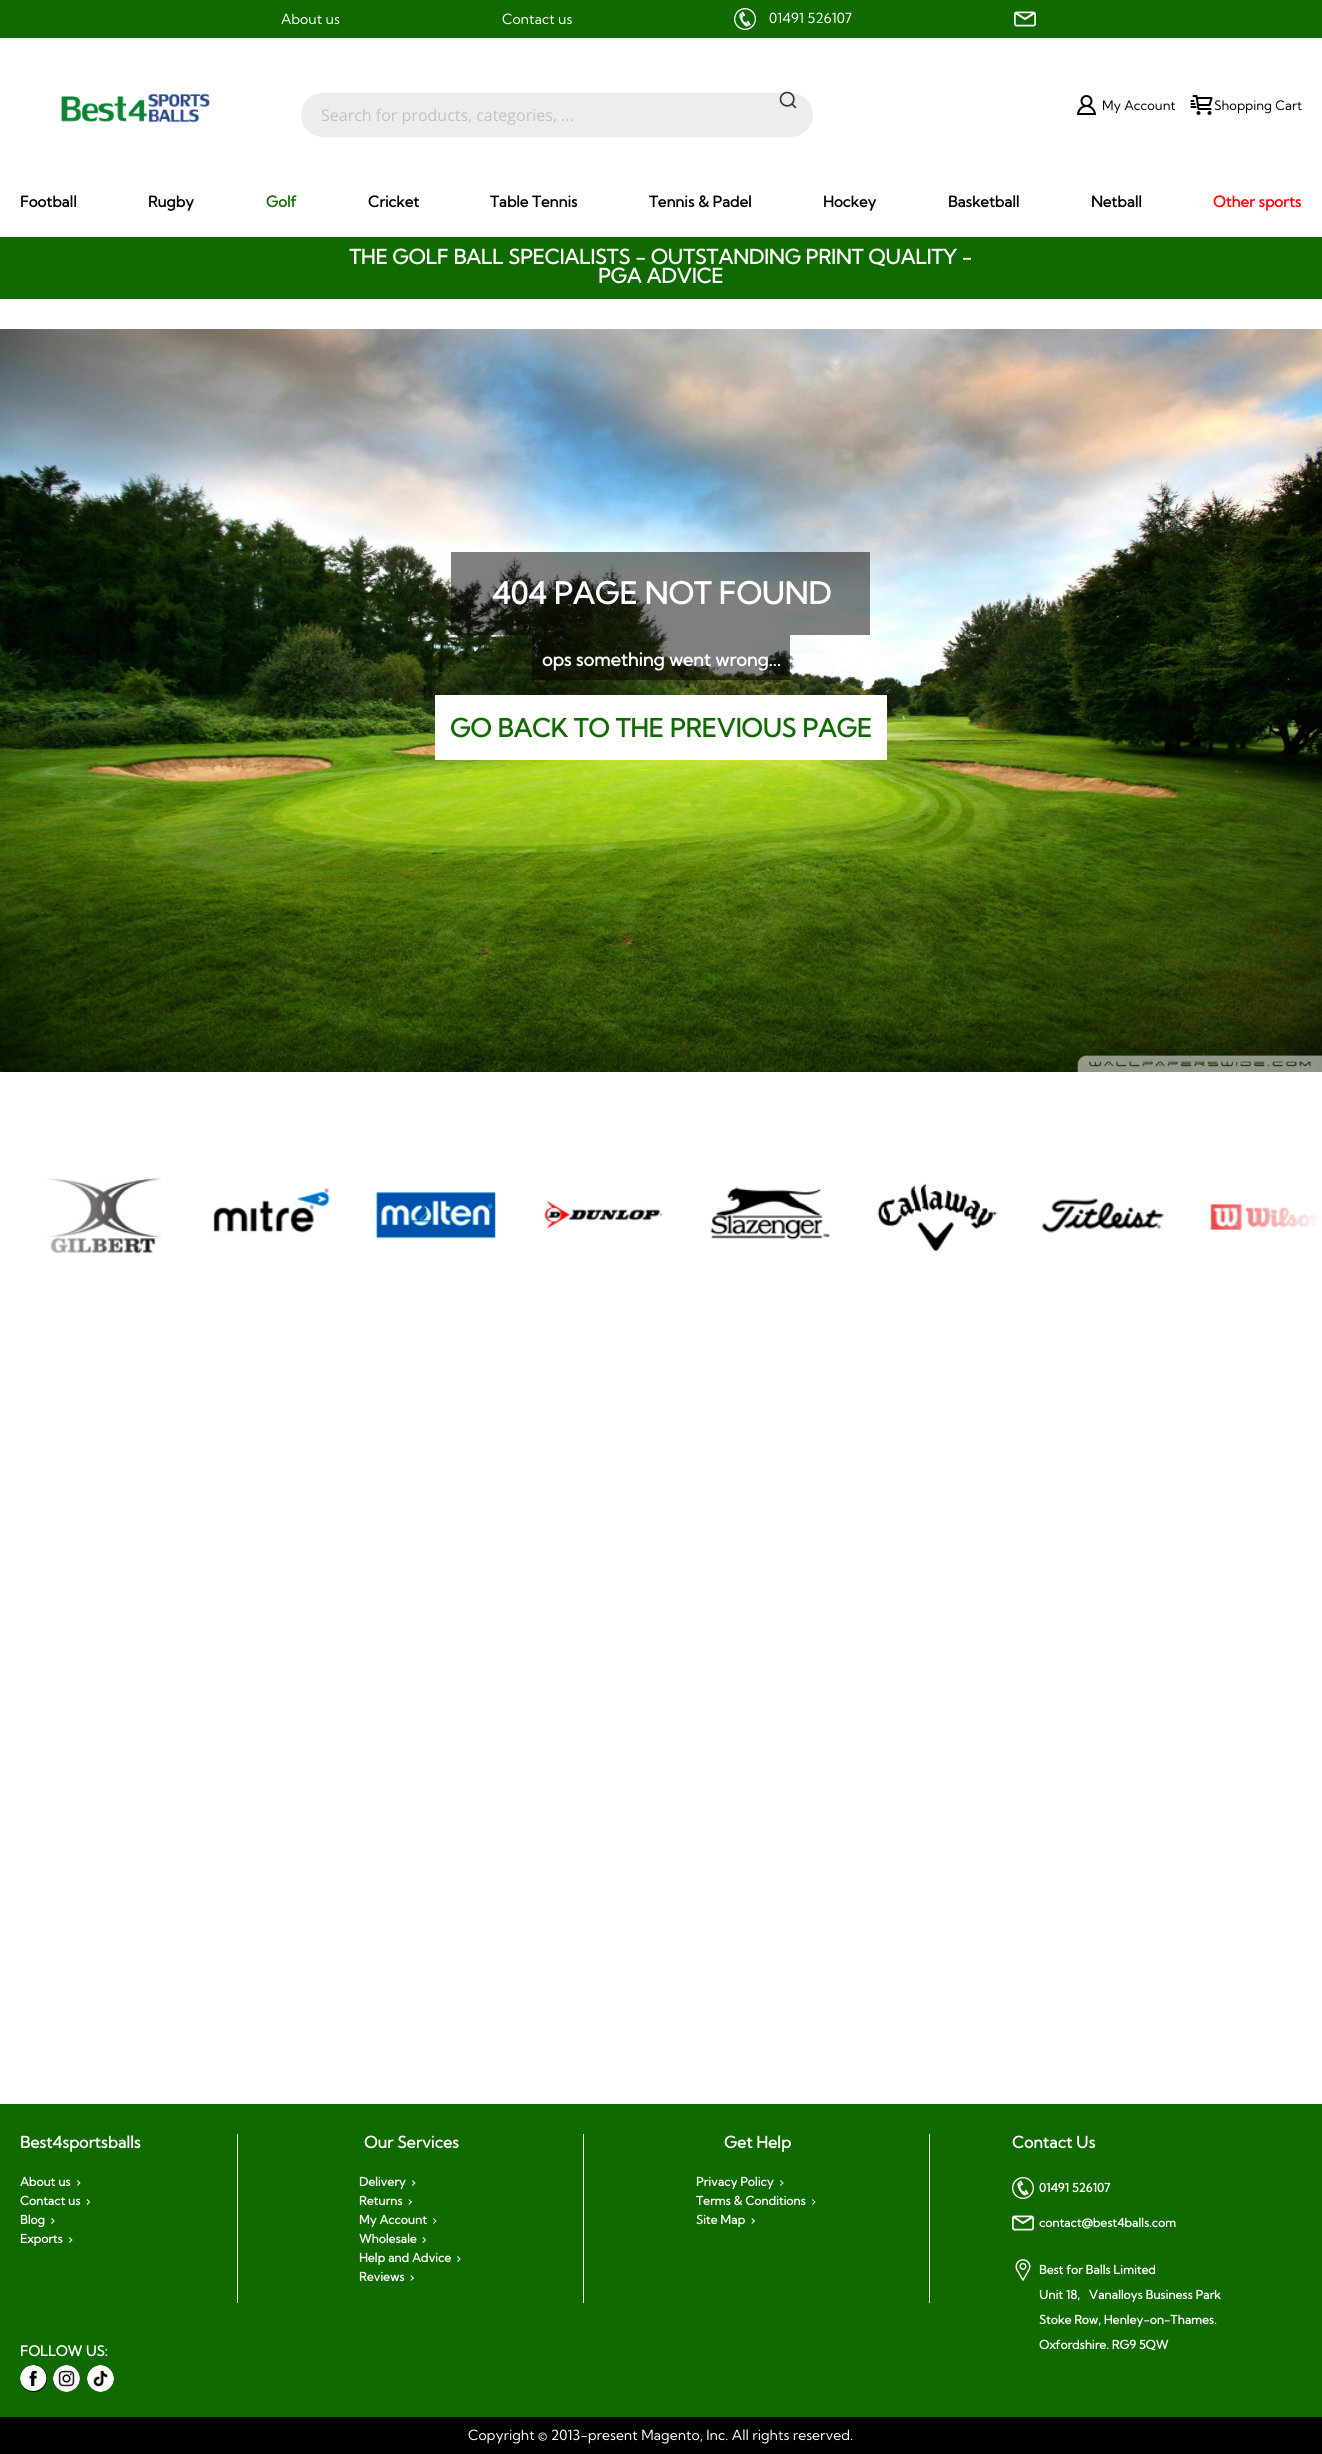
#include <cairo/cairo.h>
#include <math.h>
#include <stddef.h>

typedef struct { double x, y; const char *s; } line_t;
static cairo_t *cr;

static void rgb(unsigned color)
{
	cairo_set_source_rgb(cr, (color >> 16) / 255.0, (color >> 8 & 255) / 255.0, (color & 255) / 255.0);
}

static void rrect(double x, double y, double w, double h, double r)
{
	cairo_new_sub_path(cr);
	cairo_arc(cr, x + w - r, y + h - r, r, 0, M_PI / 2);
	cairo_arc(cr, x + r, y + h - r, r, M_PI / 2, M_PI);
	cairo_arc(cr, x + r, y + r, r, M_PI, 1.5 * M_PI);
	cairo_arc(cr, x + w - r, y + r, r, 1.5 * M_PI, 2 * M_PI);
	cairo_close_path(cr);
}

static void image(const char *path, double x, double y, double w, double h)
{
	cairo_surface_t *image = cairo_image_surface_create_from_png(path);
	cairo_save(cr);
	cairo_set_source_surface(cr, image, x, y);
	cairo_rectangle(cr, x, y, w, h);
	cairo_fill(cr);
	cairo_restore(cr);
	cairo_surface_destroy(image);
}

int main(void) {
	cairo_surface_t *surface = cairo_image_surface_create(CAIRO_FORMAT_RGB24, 1322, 2454);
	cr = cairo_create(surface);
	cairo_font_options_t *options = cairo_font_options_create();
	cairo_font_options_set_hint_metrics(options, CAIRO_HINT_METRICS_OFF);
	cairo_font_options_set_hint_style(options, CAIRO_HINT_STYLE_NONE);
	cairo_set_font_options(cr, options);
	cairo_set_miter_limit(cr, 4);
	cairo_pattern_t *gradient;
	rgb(0xffffff);
	cairo_paint(cr);
	rgb(0x116a00);
	cairo_rectangle(cr, 0, 0, 1322, 38);
	cairo_fill(cr);
	image("img/1.png", 734, 8, 22, 22);
	image("img/2.png", 1014, 11, 22, 16);
	image("img/3.png", 61, 93, 149, 30);
	rgb(0xededed);
	rrect(301, 93, 512, 44, 22);
	cairo_fill(cr);
	image("img/4.png", 779, 91, 18, 18);
	image("img/5.png", 1077, 95, 19, 20);
	image("img/6.png", 1190, 95, 23, 20);
	rgb(0x116a00);
	cairo_rectangle(cr, 0, 237, 1322, 62);
	cairo_fill(cr);
	image("img/7.png", 0, 329, 1322, 743);
	cairo_set_source_rgba(cr, 0, 0, 0, 0.5);
	cairo_rectangle(cr, 451, 552, 419, 83);
	cairo_fill(cr);
	cairo_rectangle(cr, 532, 635, 258, 45);
	cairo_fill(cr);
	rgb(0xffffff);
	cairo_rectangle(cr, 435, 695, 452, 65);
	cairo_fill(cr);
	image("img/8.png", 46, 1177, 116, 77);
	image("img/9.png", 213, 1188, 117, 45);
	image("img/10.png", 376, 1192, 120, 47);
	image("img/11.png", 544, 1200, 119, 30);
	image("img/12.png", 710, 1187, 120, 53);
	image("img/13.png", 877, 1183, 120, 69);
	image("img/14.png", 1042, 1198, 122, 36);
	image("img/15.png", 1210, 1204, 111, 26);
	gradient = cairo_pattern_create_linear(150, 1222, 0, 1222);
	cairo_pattern_add_color_stop_rgba(gradient, 0, 1, 1, 1, 0);
	cairo_pattern_add_color_stop_rgba(gradient, 1, 1, 1, 1, 1);
	cairo_set_source(cr, gradient);
	cairo_pattern_destroy(gradient);
	cairo_rectangle(cr, 46, 1177, 101, 77);
	cairo_fill(cr);
	gradient = cairo_pattern_create_linear(1172, 1222, 1322, 1222);
	cairo_pattern_add_color_stop_rgba(gradient, 0, 1, 1, 1, 0);
	cairo_pattern_add_color_stop_rgba(gradient, 1, 1, 1, 1, 1);
	cairo_set_source(cr, gradient);
	cairo_pattern_destroy(gradient);
	cairo_rectangle(cr, 1210, 1204, 111, 26);
	cairo_fill(cr);
	rgb(0x116a00);
	cairo_rectangle(cr, 0, 2104, 1322, 313);
	cairo_fill(cr);
	rgb(0xffffff);
	cairo_rectangle(cr, 237, 2134, 1, 169);
	cairo_fill(cr);
	cairo_new_path(cr);
	cairo_move_to(cr, 77, 2181);
	cairo_line_to(cr, 77.5, 2180);
	cairo_line_to(cr, 80.5, 2183);
	cairo_line_to(cr, 79.5, 2183.5);
	cairo_close_path(cr);
	cairo_fill(cr);
	cairo_new_path(cr);
	cairo_move_to(cr, 77, 2185);
	cairo_line_to(cr, 79.5, 2182.5);
	cairo_line_to(cr, 80.5, 2183);
	cairo_line_to(cr, 77.5, 2186);
	cairo_close_path(cr);
	cairo_fill(cr);
	cairo_new_path(cr);
	cairo_move_to(cr, 86.5, 2200);
	cairo_line_to(cr, 87.5, 2199);
	cairo_line_to(cr, 90, 2202);
	cairo_line_to(cr, 89.5, 2202.5);
	cairo_close_path(cr);
	cairo_fill(cr);
	cairo_new_path(cr);
	cairo_move_to(cr, 86.5, 2204);
	cairo_line_to(cr, 89.5, 2201.5);
	cairo_line_to(cr, 90, 2202);
	cairo_line_to(cr, 87.5, 2205);
	cairo_close_path(cr);
	cairo_fill(cr);
	cairo_new_path(cr);
	cairo_move_to(cr, 51, 2219);
	cairo_line_to(cr, 52, 2218);
	cairo_line_to(cr, 54.5, 2221);
	cairo_line_to(cr, 54, 2221.5);
	cairo_close_path(cr);
	cairo_fill(cr);
	cairo_new_path(cr);
	cairo_move_to(cr, 51, 2223);
	cairo_line_to(cr, 54, 2220.5);
	cairo_line_to(cr, 54.5, 2221);
	cairo_line_to(cr, 52, 2224);
	cairo_close_path(cr);
	cairo_fill(cr);
	cairo_new_path(cr);
	cairo_move_to(cr, 69, 2238);
	cairo_line_to(cr, 69.5, 2237);
	cairo_line_to(cr, 72.5, 2240);
	cairo_line_to(cr, 71.5, 2240.5);
	cairo_close_path(cr);
	cairo_fill(cr);
	cairo_new_path(cr);
	cairo_move_to(cr, 69, 2242);
	cairo_line_to(cr, 71.5, 2239.5);
	cairo_line_to(cr, 72.5, 2240);
	cairo_line_to(cr, 69.5, 2243);
	cairo_close_path(cr);
	cairo_fill(cr);
	cairo_new_path(cr);
	cairo_move_to(cr, 412, 2181);
	cairo_line_to(cr, 412.5, 2180);
	cairo_line_to(cr, 415.5, 2183);
	cairo_line_to(cr, 414.5, 2183.5);
	cairo_close_path(cr);
	cairo_fill(cr);
	cairo_new_path(cr);
	cairo_move_to(cr, 412, 2185);
	cairo_line_to(cr, 414.5, 2182.5);
	cairo_line_to(cr, 415.5, 2183);
	cairo_line_to(cr, 412.5, 2186);
	cairo_close_path(cr);
	cairo_fill(cr);
	cairo_new_path(cr);
	cairo_move_to(cr, 408.5, 2200);
	cairo_line_to(cr, 409, 2199);
	cairo_line_to(cr, 412, 2202);
	cairo_line_to(cr, 411, 2202.5);
	cairo_close_path(cr);
	cairo_fill(cr);
	cairo_new_path(cr);
	cairo_move_to(cr, 408.5, 2204);
	cairo_line_to(cr, 411, 2201.5);
	cairo_line_to(cr, 412, 2202);
	cairo_line_to(cr, 409, 2205);
	cairo_close_path(cr);
	cairo_fill(cr);
	cairo_new_path(cr);
	cairo_move_to(cr, 433, 2219);
	cairo_line_to(cr, 433.5, 2218);
	cairo_line_to(cr, 436.5, 2221);
	cairo_line_to(cr, 436, 2221.5);
	cairo_close_path(cr);
	cairo_fill(cr);
	cairo_new_path(cr);
	cairo_move_to(cr, 433, 2223);
	cairo_line_to(cr, 436, 2220.5);
	cairo_line_to(cr, 436.5, 2221);
	cairo_line_to(cr, 433.5, 2224);
	cairo_close_path(cr);
	cairo_fill(cr);
	cairo_new_path(cr);
	cairo_move_to(cr, 422.5, 2238);
	cairo_line_to(cr, 423.5, 2237);
	cairo_line_to(cr, 426, 2240);
	cairo_line_to(cr, 425.5, 2240.5);
	cairo_close_path(cr);
	cairo_fill(cr);
	cairo_new_path(cr);
	cairo_move_to(cr, 422.5, 2242);
	cairo_line_to(cr, 425.5, 2239.5);
	cairo_line_to(cr, 426, 2240);
	cairo_line_to(cr, 423.5, 2243);
	cairo_close_path(cr);
	cairo_fill(cr);
	cairo_new_path(cr);
	cairo_move_to(cr, 457, 2257);
	cairo_line_to(cr, 458, 2256);
	cairo_line_to(cr, 460.5, 2259);
	cairo_line_to(cr, 460, 2259.5);
	cairo_close_path(cr);
	cairo_fill(cr);
	cairo_new_path(cr);
	cairo_move_to(cr, 457, 2261);
	cairo_line_to(cr, 460, 2258.5);
	cairo_line_to(cr, 460.5, 2259);
	cairo_line_to(cr, 458, 2262);
	cairo_close_path(cr);
	cairo_fill(cr);
	cairo_new_path(cr);
	cairo_move_to(cr, 410.5, 2276);
	cairo_line_to(cr, 411, 2275);
	cairo_line_to(cr, 414, 2278);
	cairo_line_to(cr, 413, 2278.5);
	cairo_close_path(cr);
	cairo_fill(cr);
	cairo_new_path(cr);
	cairo_move_to(cr, 410.5, 2280);
	cairo_line_to(cr, 413, 2277.5);
	cairo_line_to(cr, 414, 2278);
	cairo_line_to(cr, 411, 2281);
	cairo_close_path(cr);
	cairo_fill(cr);
	cairo_rectangle(cr, 583, 2134, 1, 169);
	cairo_fill(cr);
	cairo_new_path(cr);
	cairo_move_to(cr, 780, 2181);
	cairo_line_to(cr, 780.5, 2180);
	cairo_line_to(cr, 783.5, 2183);
	cairo_line_to(cr, 783, 2183.5);
	cairo_close_path(cr);
	cairo_fill(cr);
	cairo_new_path(cr);
	cairo_move_to(cr, 780, 2185);
	cairo_line_to(cr, 783, 2182.5);
	cairo_line_to(cr, 783.5, 2183);
	cairo_line_to(cr, 780.5, 2186);
	cairo_close_path(cr);
	cairo_fill(cr);
	cairo_new_path(cr);
	cairo_move_to(cr, 812, 2200);
	cairo_line_to(cr, 812.5, 2199);
	cairo_line_to(cr, 815.5, 2202);
	cairo_line_to(cr, 815, 2202.5);
	cairo_close_path(cr);
	cairo_fill(cr);
	cairo_new_path(cr);
	cairo_move_to(cr, 812, 2204);
	cairo_line_to(cr, 815, 2201.5);
	cairo_line_to(cr, 815.5, 2202);
	cairo_line_to(cr, 812.5, 2205);
	cairo_close_path(cr);
	cairo_fill(cr);
	cairo_new_path(cr);
	cairo_move_to(cr, 751.5, 2219);
	cairo_line_to(cr, 752, 2218);
	cairo_line_to(cr, 755, 2221);
	cairo_line_to(cr, 754, 2221.5);
	cairo_close_path(cr);
	cairo_fill(cr);
	cairo_new_path(cr);
	cairo_move_to(cr, 751.5, 2223);
	cairo_line_to(cr, 754, 2220.5);
	cairo_line_to(cr, 755, 2221);
	cairo_line_to(cr, 752, 2224);
	cairo_close_path(cr);
	cairo_fill(cr);
	cairo_rectangle(cr, 929, 2134, 1, 169);
	cairo_fill(cr);
	image("img/1.png", 1012, 2177, 22, 22);
	image("img/2.png", 1012, 2215, 22, 16);
	image("img/16.png", 1015, 2259, 16, 22);
	rgb(0x000000);
	cairo_arc(cr, 33.5, 2378.5, 13.5, 0, 2 * M_PI);
	cairo_fill(cr);
	image("img/17.png", 20, 2365, 27, 26);
	cairo_arc(cr, 66.5, 2378.5, 13.5, 0, 2 * M_PI);
	cairo_fill(cr);
	image("img/18.png", 53, 2365, 27, 27);
	cairo_arc(cr, 100.5, 2378.5, 13.5, 0, 2 * M_PI);
	cairo_fill(cr);
	image("img/19.png", 87, 2365, 27, 27);
	cairo_rectangle(cr, 0, 2417, 1322, 37);
	cairo_fill(cr);
	cairo_select_font_face(cr, "Kumbh Sans", CAIRO_FONT_SLANT_NORMAL, CAIRO_FONT_WEIGHT_NORMAL);
	cairo_set_font_size(cr, 14);
	rgb(0xffffff);
	{
		static const line_t items[] = {
			{281, 24, "About us"},
			{502, 24, "Contact us"},
			{769, 23, "01491 526107"},
		};
		for (size_t i = 0; i < sizeof items / sizeof *items; i++) {
			cairo_move_to(cr, items[i].x, items[i].y);
			cairo_show_text(cr, items[i].s);
		}
	}
	cairo_select_font_face(cr, "Open Sans", CAIRO_FONT_SLANT_NORMAL, CAIRO_FONT_WEIGHT_NORMAL);
	cairo_set_font_size(cr, 16);
	rgb(0xc2c2c2);
	cairo_move_to(cr, 321, 121);
	cairo_show_text(cr, "Search for products, categories, ...");
	cairo_select_font_face(cr, "Kumbh Sans", CAIRO_FONT_SLANT_NORMAL, CAIRO_FONT_WEIGHT_NORMAL);
	cairo_set_font_size(cr, 13);
	rgb(0x000000);
	cairo_move_to(cr, 1102, 110);
	cairo_show_text(cr, "My Account");
	cairo_move_to(cr, 1214, 110);
	cairo_show_text(cr, "Shopping Cart");
	cairo_select_font_face(cr, "Kumbh Sans", CAIRO_FONT_SLANT_NORMAL, CAIRO_FONT_WEIGHT_BOLD);
	cairo_set_font_size(cr, 15);
	cairo_move_to(cr, 20, 207);
	cairo_show_text(cr, "Football");
	cairo_move_to(cr, 148, 207);
	cairo_show_text(cr, "Rugby");
	rgb(0x116a00);
	cairo_move_to(cr, 266, 207);
	cairo_show_text(cr, "Golf");
	rgb(0x000000);
	{
		static const line_t items[] = {
			{368, 207, "Cricket"},
			{490, 207, "Table Tennis"},
			{649, 207, "Tennis & Padel"},
			{823, 207, "Hockey"},
			{948, 207, "Basketball"},
			{1091, 207, "Netball"},
		};
		for (size_t i = 0; i < sizeof items / sizeof *items; i++) {
			cairo_move_to(cr, items[i].x, items[i].y);
			cairo_show_text(cr, items[i].s);
		}
	}
	rgb(0xff0000);
	cairo_move_to(cr, 1213, 207);
	cairo_show_text(cr, "Other sports");
	cairo_set_font_size(cr, 20);
	rgb(0xffffff);
	cairo_move_to(cr, 349, 264);
	cairo_show_text(cr, "THE GOLF BALL SPECIALISTS - OUTSTANDING PRINT QUALITY -");
	cairo_move_to(cr, 598, 283);
	cairo_show_text(cr, "PGA ADVICE");
	cairo_set_font_size(cr, 30);
	cairo_move_to(cr, 492, 604);
	cairo_show_text(cr, "404 PAGE NOT FOUND");
	cairo_set_font_size(cr, 18);
	cairo_move_to(cr, 542, 666);
	cairo_show_text(cr, "ops something went wrong...");
	cairo_set_font_size(cr, 25);
	rgb(0x116a00);
	cairo_move_to(cr, 450, 737);
	cairo_show_text(cr, "GO BACK TO THE PREVIOUS PAGE");
	cairo_set_font_size(cr, 16);
	rgb(0xffffff);
	cairo_move_to(cr, 20, 2148);
	cairo_show_text(cr, "Best4sportsballs");
	cairo_set_font_size(cr, 12);
	{
		static const line_t items[] = {
			{20, 2186, "About us"},
			{20, 2205, "Contact us"},
			{20, 2224, "Blog"},
			{20, 2243, "Exports"},
		};
		for (size_t i = 0; i < sizeof items / sizeof *items; i++) {
			cairo_move_to(cr, items[i].x, items[i].y);
			cairo_show_text(cr, items[i].s);
		}
	}
	cairo_set_font_size(cr, 16);
	cairo_move_to(cr, 364, 2148);
	cairo_show_text(cr, "Our Services");
	cairo_set_font_size(cr, 12);
	{
		static const line_t items[] = {
			{359, 2186, "Delivery"},
			{359, 2205, "Returns"},
			{359, 2224, "My Account"},
			{359, 2243, "Wholesale"},
			{359, 2262, "Help and Advice"},
			{359, 2281, "Reviews"},
		};
		for (size_t i = 0; i < sizeof items / sizeof *items; i++) {
			cairo_move_to(cr, items[i].x, items[i].y);
			cairo_show_text(cr, items[i].s);
		}
	}
	cairo_set_font_size(cr, 16);
	cairo_move_to(cr, 724, 2148);
	cairo_show_text(cr, "Get Help");
	cairo_set_font_size(cr, 12);
	{
		static const line_t items[] = {
			{696, 2186, "Privacy Policy"},
			{696, 2205, "Terms & Conditions"},
			{696, 2224, "Site Map"},
		};
		for (size_t i = 0; i < sizeof items / sizeof *items; i++) {
			cairo_move_to(cr, items[i].x, items[i].y);
			cairo_show_text(cr, items[i].s);
		}
	}
	cairo_set_font_size(cr, 16);
	cairo_move_to(cr, 1012, 2148);
	cairo_show_text(cr, "Contact Us");
	cairo_set_font_size(cr, 12);
	{
		static const line_t items[] = {
			{1039, 2192, "01491 526107"},
			{1039, 2227, "contact@best4balls.com"},
			{1039, 2274, "Best for Balls Limited"},
			{1039, 2299, "Unit 18,   Vanalloys Business Park"},
			{1039, 2324, "Stoke Row, Henley-on-Thames."},
			{1039, 2349, "Oxfordshire. RG9 5QW"},
		};
		for (size_t i = 0; i < sizeof items / sizeof *items; i++) {
			cairo_move_to(cr, items[i].x, items[i].y);
			cairo_show_text(cr, items[i].s);
		}
	}
	cairo_set_font_size(cr, 14);
	cairo_move_to(cr, 20, 2356);
	cairo_show_text(cr, "FOLLOW US:");
	cairo_select_font_face(cr, "Kumbh Sans", CAIRO_FONT_SLANT_NORMAL, CAIRO_FONT_WEIGHT_NORMAL);
	cairo_move_to(cr, 468, 2440);
	cairo_show_text(cr, "Copyright © 2013-present Magento, Inc. All rights reserved.");
	cairo_surface_write_to_png(surface, "page.png");
	cairo_font_options_destroy(options);
	cairo_destroy(cr);
	cairo_surface_destroy(surface);
	return 0;
}
